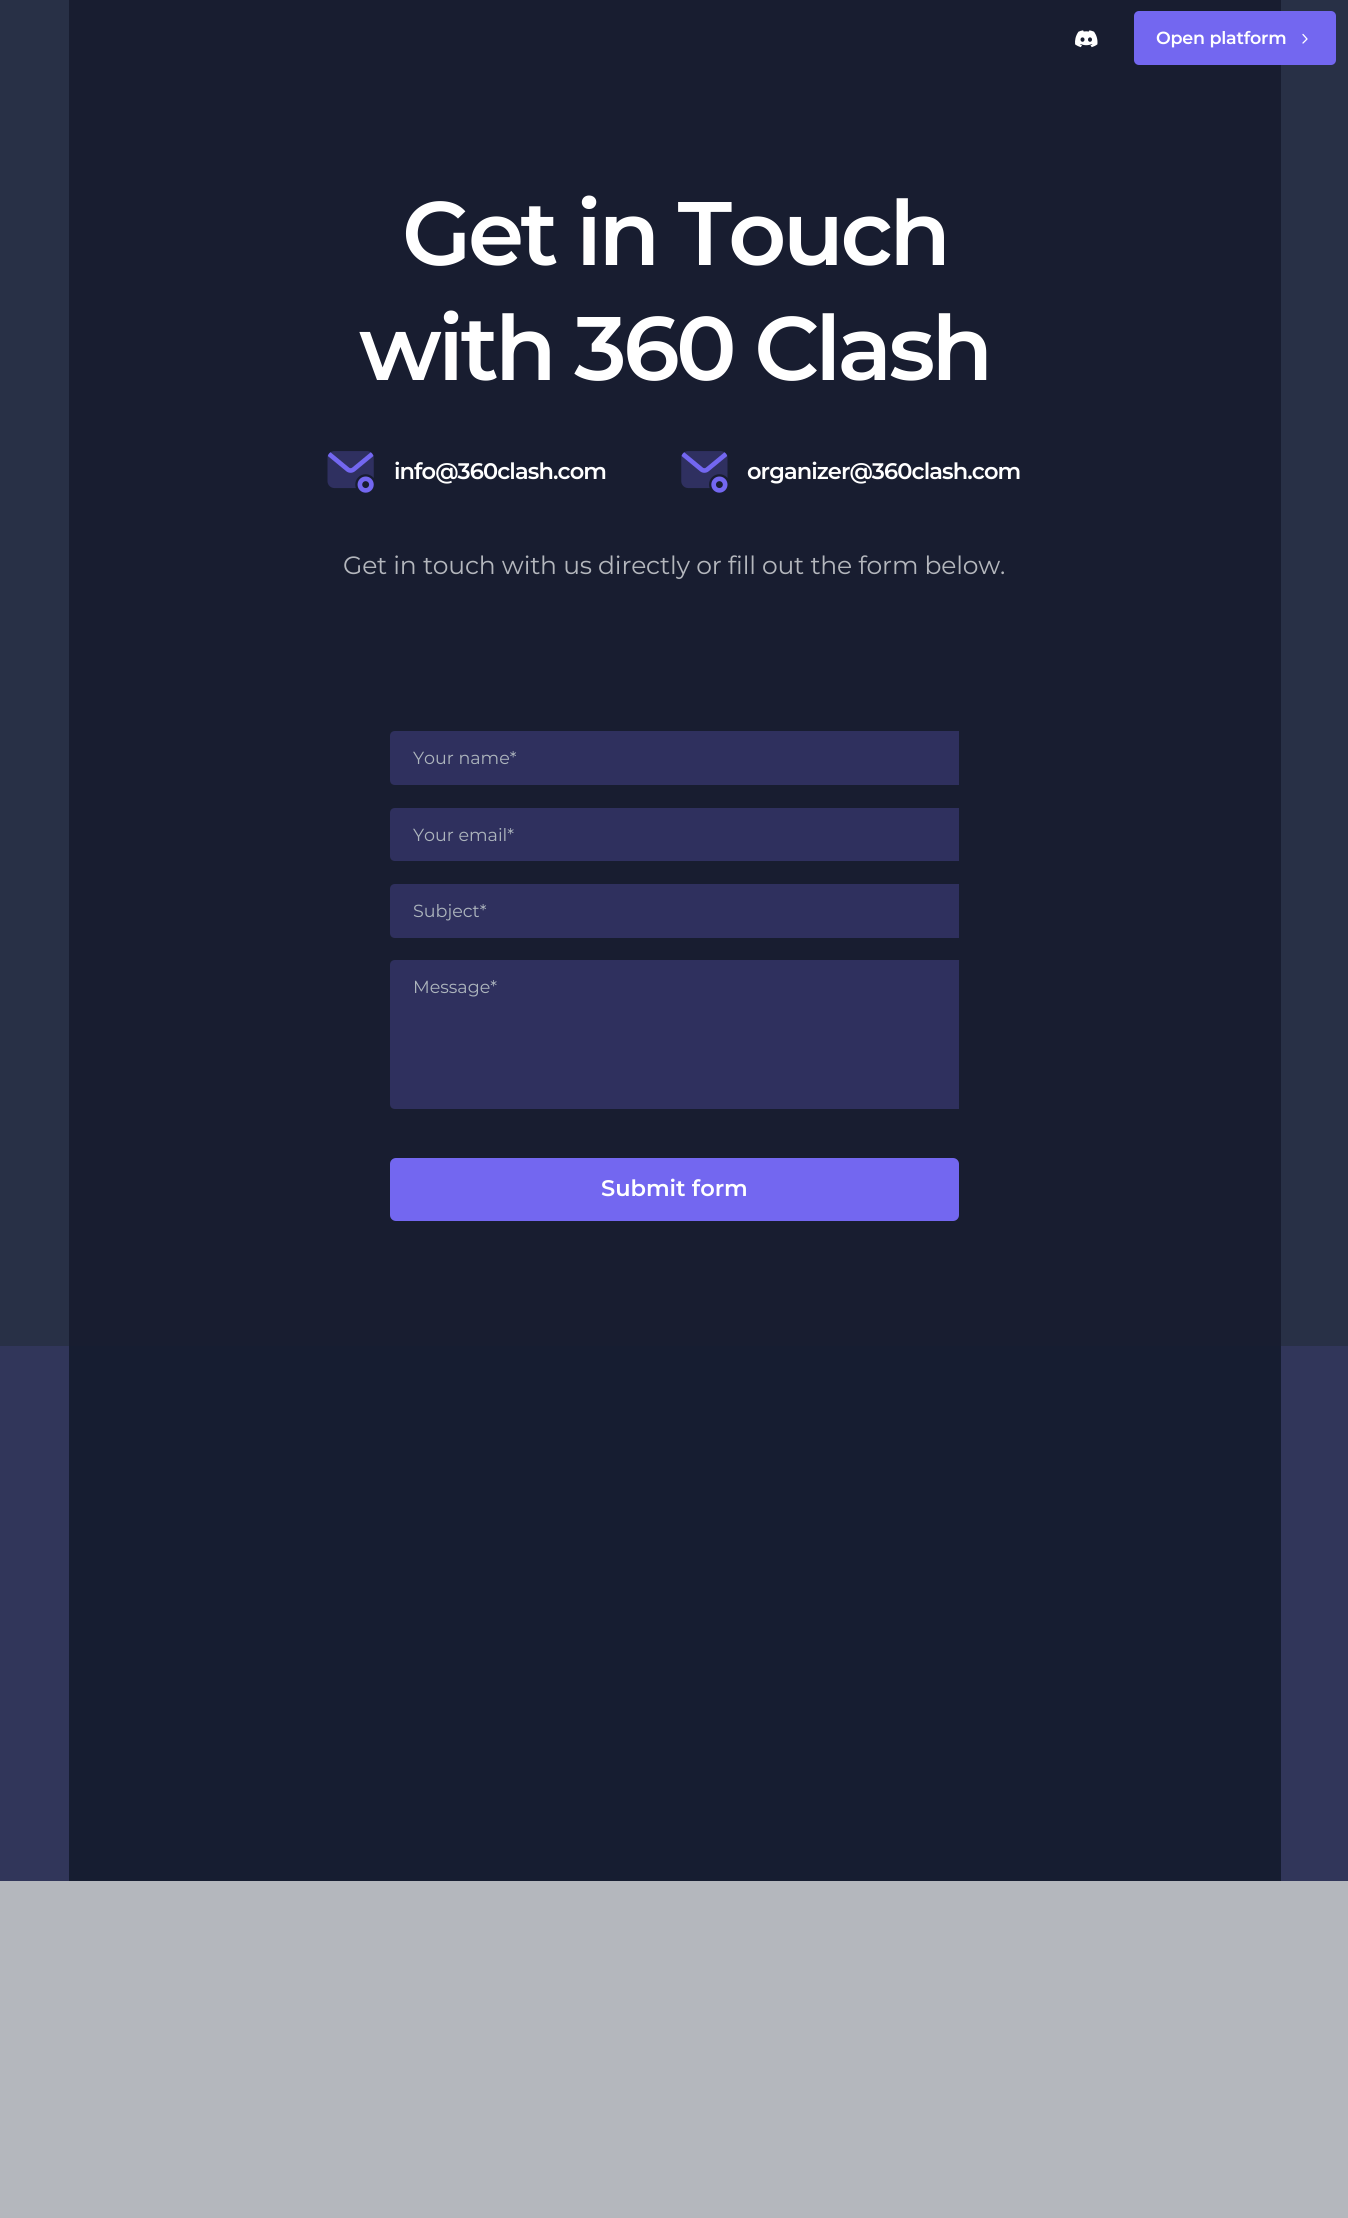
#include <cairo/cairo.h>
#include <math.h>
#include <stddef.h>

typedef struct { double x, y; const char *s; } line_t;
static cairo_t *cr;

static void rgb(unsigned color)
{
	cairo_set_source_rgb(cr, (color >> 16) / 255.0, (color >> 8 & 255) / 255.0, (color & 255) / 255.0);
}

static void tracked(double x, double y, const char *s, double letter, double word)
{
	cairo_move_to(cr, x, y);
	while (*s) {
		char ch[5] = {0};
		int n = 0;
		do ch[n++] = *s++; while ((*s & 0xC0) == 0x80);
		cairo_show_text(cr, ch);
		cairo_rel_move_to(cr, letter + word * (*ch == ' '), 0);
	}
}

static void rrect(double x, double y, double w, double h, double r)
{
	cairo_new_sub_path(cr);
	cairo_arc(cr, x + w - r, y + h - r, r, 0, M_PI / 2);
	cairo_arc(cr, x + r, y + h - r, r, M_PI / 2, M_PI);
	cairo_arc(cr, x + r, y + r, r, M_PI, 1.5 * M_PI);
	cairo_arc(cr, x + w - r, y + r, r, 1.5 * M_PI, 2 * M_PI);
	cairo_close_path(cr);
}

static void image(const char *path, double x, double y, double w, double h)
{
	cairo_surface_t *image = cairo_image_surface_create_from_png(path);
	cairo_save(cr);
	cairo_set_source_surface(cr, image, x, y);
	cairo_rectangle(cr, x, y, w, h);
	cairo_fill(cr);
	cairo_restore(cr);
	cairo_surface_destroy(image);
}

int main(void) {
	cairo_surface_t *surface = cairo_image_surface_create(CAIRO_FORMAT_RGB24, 1348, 2218);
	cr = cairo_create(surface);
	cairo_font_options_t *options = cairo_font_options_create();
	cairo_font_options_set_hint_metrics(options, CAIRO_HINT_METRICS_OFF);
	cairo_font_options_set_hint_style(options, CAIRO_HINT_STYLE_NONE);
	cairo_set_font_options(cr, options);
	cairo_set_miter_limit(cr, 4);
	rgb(0xb4b7bd);
	cairo_paint(cr);
	rgb(0x283046);
	cairo_rectangle(cr, 0, 0, 1348, 1346);
	cairo_fill(cr);
	rgb(0x181d30);
	cairo_rectangle(cr, 69, 0, 1212, 1346);
	cairo_fill(cr);
	image("img/1.png", 1075, 30, 23, 18);
	rgb(0x7367f0);
	rrect(1134, 11, 202, 54, 5);
	cairo_fill(cr);
	cairo_new_path(cr);
	cairo_move_to(cr, 1303, 43);
	cairo_line_to(cr, 1307, 39);
	cairo_line_to(cr, 1303, 34.5);
	rgb(0xffffff);
	cairo_set_line_width(cr, 1.3);
	cairo_set_line_cap(cr, CAIRO_LINE_CAP_ROUND);
	cairo_set_line_join(cr, CAIRO_LINE_JOIN_ROUND);
	cairo_stroke(cr);
	image("img/2.png", 327, 451, 47, 42);
	image("img/3.png", 681, 451, 47, 42);
	rgb(0x2f305e);
	cairo_new_path(cr);
	cairo_move_to(cr, 395, 731);
	cairo_line_to(cr, 959, 731);
	cairo_line_to(cr, 959, 785);
	cairo_line_to(cr, 395, 785);
	cairo_curve_to(cr, 392, 785, 390, 783, 390, 780);
	cairo_line_to(cr, 390, 736);
	cairo_curve_to(cr, 390, 733, 392, 731, 395, 731);
	cairo_close_path(cr);
	cairo_fill(cr);
	cairo_new_path(cr);
	cairo_move_to(cr, 395, 808);
	cairo_line_to(cr, 959, 808);
	cairo_line_to(cr, 959, 861);
	cairo_line_to(cr, 395, 861);
	cairo_curve_to(cr, 392, 861, 390, 859, 390, 856);
	cairo_line_to(cr, 390, 813);
	cairo_curve_to(cr, 390, 810, 392, 808, 395, 808);
	cairo_close_path(cr);
	cairo_fill(cr);
	cairo_new_path(cr);
	cairo_move_to(cr, 395, 884);
	cairo_line_to(cr, 959, 884);
	cairo_line_to(cr, 959, 938);
	cairo_line_to(cr, 395, 938);
	cairo_curve_to(cr, 392, 938, 390, 936, 390, 933);
	cairo_line_to(cr, 390, 889);
	cairo_curve_to(cr, 390, 886, 392, 884, 395, 884);
	cairo_close_path(cr);
	cairo_fill(cr);
	cairo_new_path(cr);
	cairo_move_to(cr, 395, 960);
	cairo_line_to(cr, 959, 960);
	cairo_line_to(cr, 959, 1109);
	cairo_line_to(cr, 395, 1109);
	cairo_curve_to(cr, 392, 1109, 390, 1107, 390, 1104);
	cairo_line_to(cr, 390, 965);
	cairo_curve_to(cr, 390, 962, 392, 960, 395, 960);
	cairo_close_path(cr);
	cairo_fill(cr);
	rgb(0x7367f0);
	rrect(390, 1158, 569, 63, 6);
	cairo_fill(cr);
	rgb(0x31365a);
	cairo_rectangle(cr, 0, 1346, 1348, 535);
	cairo_fill(cr);
	rgb(0x161d31);
	cairo_rectangle(cr, 69, 1346, 1212, 535);
	cairo_fill(cr);
	cairo_select_font_face(cr, "Montserrat SemiBold", CAIRO_FONT_SLANT_NORMAL, CAIRO_FONT_WEIGHT_NORMAL);
	cairo_set_font_size(cr, 17.5);
	rgb(0xffffff);
	tracked(1156, 44, "Open platform", -0.2, 0);
	cairo_set_font_size(cr, 90);
	tracked(402, 265, "Get in Touch", -3.6, 0);
	tracked(359, 380, "with 360 Clash", -3.6, 0);
	cairo_set_font_size(cr, 22.5);
	tracked(394, 479, "info@360clash.com", -0.9, 0);
	tracked(747, 479, "organizer@360clash.com", -0.9, 0);
	cairo_select_font_face(cr, "Montserrat", CAIRO_FONT_SLANT_NORMAL, CAIRO_FONT_WEIGHT_NORMAL);
	cairo_set_font_size(cr, 25);
	rgb(0xb4b7bd);
	tracked(343, 574, "Get in touch with us directly or fill out the form below.", -0.2, 0);
	cairo_set_font_size(cr, 17.5);
	rgb(0xadb5bd);
	{
		static const line_t items[] = {
			{413, 764, "Your name*"},
			{413, 841, "Your email*"},
			{413, 917, "Subject*"},
			{413, 993, "Message*"},
		};
		for (size_t i = 0; i < sizeof items / sizeof *items; i++) {
			cairo_move_to(cr, items[i].x, items[i].y);
			cairo_show_text(cr, items[i].s);
		}
	}
	cairo_select_font_face(cr, "Montserrat SemiBold", CAIRO_FONT_SLANT_NORMAL, CAIRO_FONT_WEIGHT_NORMAL);
	cairo_set_font_size(cr, 22.5);
	rgb(0xffffff);
	cairo_move_to(cr, 601, 1196);
	cairo_show_text(cr, "Submit form");
	cairo_surface_write_to_png(surface, "page.png");
	cairo_font_options_destroy(options);
	cairo_destroy(cr);
	cairo_surface_destroy(surface);
	return 0;
}
